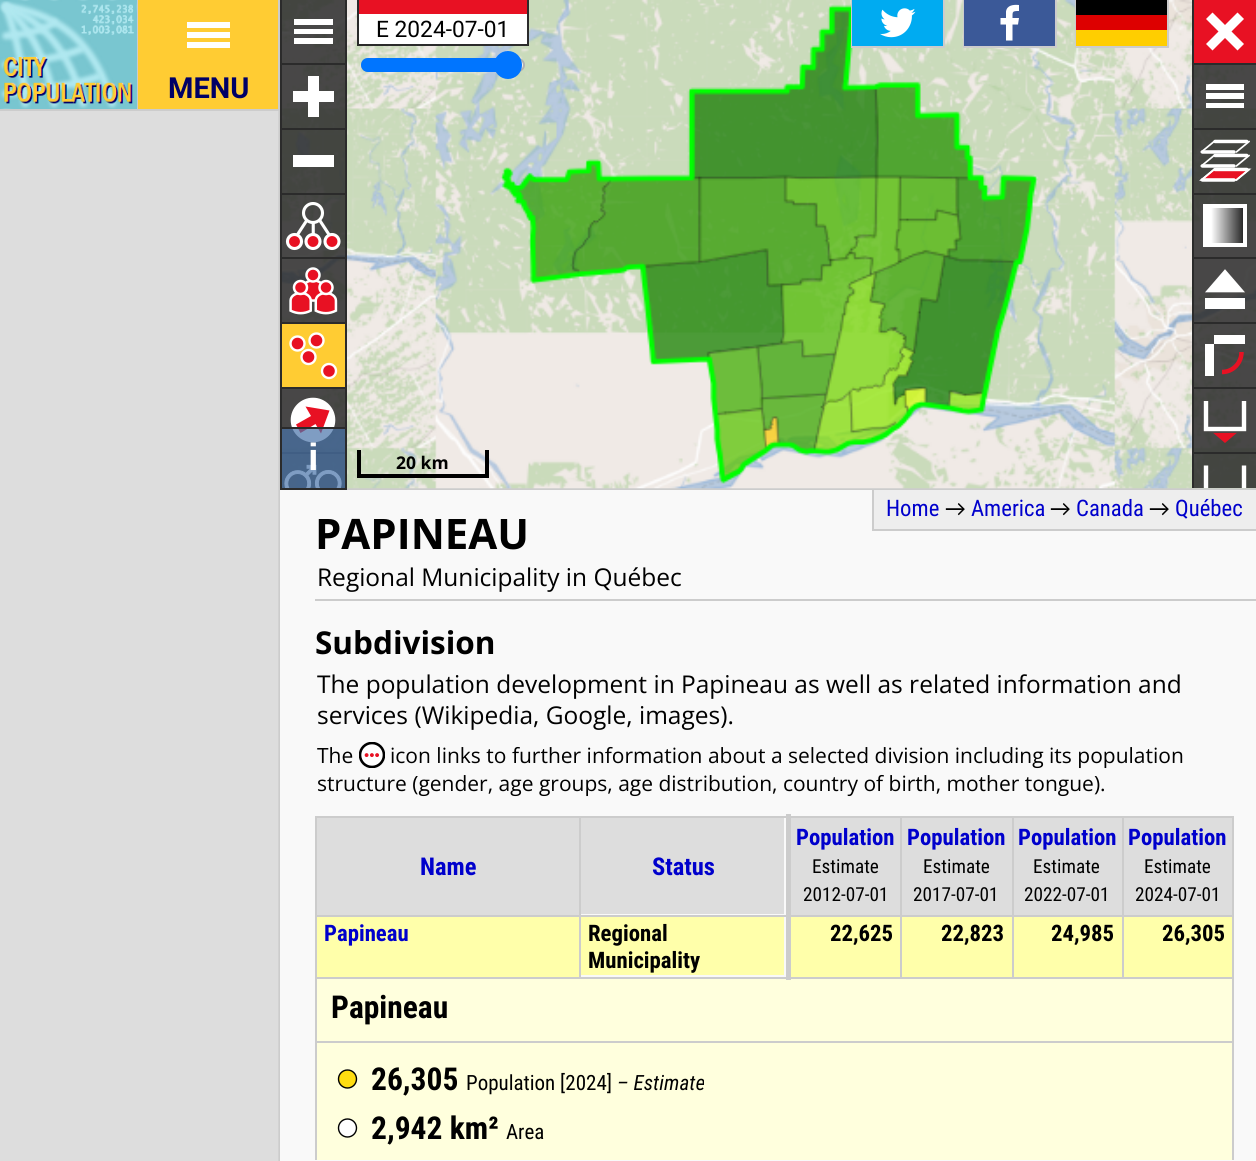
#include <cairo/cairo.h>
#include <math.h>
#include <stddef.h>

typedef struct { double x, y; const char *s; } line_t;
typedef struct { double x, y, w, h; unsigned color; } box_t;
static cairo_t *cr;

static void rgb(unsigned color)
{
	cairo_set_source_rgb(cr, (color >> 16) / 255.0, (color >> 8 & 255) / 255.0, (color & 255) / 255.0);
}

static void rrect(double x, double y, double w, double h, double r)
{
	cairo_new_sub_path(cr);
	cairo_arc(cr, x + w - r, y + h - r, r, 0, M_PI / 2);
	cairo_arc(cr, x + r, y + h - r, r, M_PI / 2, M_PI);
	cairo_arc(cr, x + r, y + r, r, M_PI, 1.5 * M_PI);
	cairo_arc(cr, x + w - r, y + r, r, 1.5 * M_PI, 2 * M_PI);
	cairo_close_path(cr);
}

static void image(const char *path, double x, double y, double w, double h)
{
	cairo_surface_t *image = cairo_image_surface_create_from_png(path);
	cairo_save(cr);
	cairo_set_source_surface(cr, image, x, y);
	cairo_rectangle(cr, x, y, w, h);
	cairo_fill(cr);
	cairo_restore(cr);
	cairo_surface_destroy(image);
}

int main(void) {
	cairo_surface_t *surface = cairo_image_surface_create(CAIRO_FORMAT_RGB24, 1256, 1161);
	cr = cairo_create(surface);
	cairo_font_options_t *options = cairo_font_options_create();
	cairo_font_options_set_hint_metrics(options, CAIRO_HINT_METRICS_OFF);
	cairo_font_options_set_hint_style(options, CAIRO_HINT_STYLE_NONE);
	cairo_set_font_options(cr, options);
	cairo_set_miter_limit(cr, 4);
	cairo_pattern_t *gradient;
	rgb(0xf9f9f9);
	cairo_paint(cr);
	image("img/1.png", 0, 0, 137, 109);
	{
		static const box_t items[] = {
			{137, 0, 1, 110, 0xcccccc},
			{0, 109, 138, 2, 0xcccccc},
			{138, 0, 140, 109, 0xffcc33},
			{278, 0, 2, 110, 0xcccccc},
			{138, 109, 142, 2, 0xcccccc},
			{187, 22, 43, 6, 0xffffff},
			{187, 32, 43, 6, 0xffffff},
			{187, 42, 43, 6, 0xffffff},
		};
		for (size_t i = 0; i < sizeof items / sizeof *items; i++) {
			rgb(items[i].color);
			cairo_rectangle(cr, items[i].x, items[i].y, items[i].w, items[i].h);
			cairo_fill(cr);
		}
	}
	cairo_rectangle(cr, 281, -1, 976, 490);
	rgb(0xcccccc);
	cairo_stroke(cr);
	image("img/6.png", 282, 0, 974, 489);
	cairo_set_source_rgba(cr, 0.169, 0.169, 0.169, 0.4);
	cairo_rectangle(cr, 282, 0, 63, 488);
	cairo_fill(cr);
	cairo_set_source_rgba(cr, 0.169, 0.169, 0.169, 0.75);
	cairo_rectangle(cr, 282, 0, 63, 63);
	cairo_fill(cr);
	rgb(0x2b2b2b);
	cairo_rectangle(cr, 280, 63, 67, 2);
	cairo_fill(cr);
	cairo_rectangle(cr, 280, 0, 2, 63);
	cairo_fill(cr);
	rgb(0xffffff);
	cairo_rectangle(cr, 294, 19, 39, 6);
	cairo_fill(cr);
	rgb(0x2b2b2b);
	cairo_rectangle(cr, 345, 0, 2, 63);
	cairo_fill(cr);
	rgb(0xffffff);
	cairo_rectangle(cr, 294, 29, 39, 5);
	cairo_fill(cr);
	cairo_rectangle(cr, 294, 38, 39, 6);
	cairo_fill(cr);
	cairo_set_source_rgba(cr, 0.169, 0.169, 0.169, 0.75);
	cairo_rectangle(cr, 282, 65, 63, 63);
	cairo_fill(cr);
	rgb(0x2b2b2b);
	cairo_rectangle(cr, 280, 128, 67, 2);
	cairo_fill(cr);
	cairo_rectangle(cr, 280, 65, 2, 63);
	cairo_fill(cr);
	rgb(0xffffff);
	cairo_rectangle(cr, 293, 91, 41, 11);
	cairo_fill(cr);
	cairo_rectangle(cr, 308, 76, 11, 41);
	cairo_fill(cr);
	rgb(0x2b2b2b);
	cairo_rectangle(cr, 345, 65, 2, 63);
	cairo_fill(cr);
	cairo_set_source_rgba(cr, 0.169, 0.169, 0.169, 0.75);
	cairo_rectangle(cr, 282, 130, 63, 63);
	cairo_fill(cr);
	rgb(0x2b2b2b);
	cairo_rectangle(cr, 280, 193, 67, 2);
	cairo_fill(cr);
	cairo_rectangle(cr, 280, 130, 2, 63);
	cairo_fill(cr);
	rgb(0xffffff);
	cairo_rectangle(cr, 293, 155, 41, 12);
	cairo_fill(cr);
	rgb(0x2b2b2b);
	cairo_rectangle(cr, 345, 130, 2, 63);
	cairo_fill(cr);
	cairo_set_source_rgba(cr, 0.169, 0.169, 0.169, 0.75);
	cairo_rectangle(cr, 282, 195, 63, 62);
	cairo_fill(cr);
	rgb(0x2b2b2b);
	cairo_rectangle(cr, 280, 257, 67, 2);
	cairo_fill(cr);
	cairo_rectangle(cr, 280, 194, 2, 63);
	cairo_fill(cr);
	image("img/2.png", 285, 202, 56, 49);
	cairo_rectangle(cr, 345, 194, 2, 63);
	cairo_fill(cr);
	cairo_set_source_rgba(cr, 0.169, 0.169, 0.169, 0.75);
	cairo_rectangle(cr, 282, 259, 63, 63);
	cairo_fill(cr);
	rgb(0x2b2b2b);
	cairo_rectangle(cr, 280, 322, 67, 2);
	cairo_fill(cr);
	cairo_rectangle(cr, 280, 259, 2, 63);
	cairo_fill(cr);
	image("img/3.png", 289, 267, 49, 48);
	{
		static const box_t items[] = {
			{345, 259, 2, 63, 0x2b2b2b},
			{282, 324, 63, 63, 0xffcc33},
			{280, 387, 67, 2, 0x2b2b2b},
			{280, 324, 2, 63, 0x2b2b2b},
		};
		for (size_t i = 0; i < sizeof items / sizeof *items; i++) {
			rgb(items[i].color);
			cairo_rectangle(cr, items[i].x, items[i].y, items[i].w, items[i].h);
			cairo_fill(cr);
		}
	}
	rgb(0xe81123);
	cairo_arc(cr, 297.5, 343.5, 7, 0, 2 * M_PI);
	cairo_fill_preserve(cr);
	rgb(0xffffff);
	cairo_set_line_width(cr, 2.4);
	cairo_stroke(cr);
	rgb(0xe81123);
	cairo_arc(cr, 316.5, 340.5, 7, 0, 2 * M_PI);
	cairo_fill_preserve(cr);
	rgb(0xffffff);
	cairo_stroke(cr);
	rgb(0x2b2b2b);
	cairo_rectangle(cr, 345, 324, 2, 63);
	cairo_fill(cr);
	rgb(0xe81123);
	cairo_arc(cr, 308.5, 357, 7, 0, 2 * M_PI);
	cairo_fill_preserve(cr);
	rgb(0xffffff);
	cairo_stroke(cr);
	rgb(0xe81123);
	cairo_arc(cr, 329, 371, 7, 0, 2 * M_PI);
	cairo_fill_preserve(cr);
	rgb(0xffffff);
	cairo_stroke(cr);
	cairo_set_source_rgba(cr, 0.169, 0.169, 0.169, 0.75);
	cairo_rectangle(cr, 282, 389, 63, 63);
	cairo_fill(cr);
	rgb(0x2b2b2b);
	cairo_rectangle(cr, 280, 452, 67, 2);
	cairo_fill(cr);
	cairo_rectangle(cr, 280, 389, 2, 38);
	cairo_fill(cr);
	rgb(0xffffff);
	cairo_arc(cr, 313, 420, 21.5, 0, 2 * M_PI);
	cairo_fill_preserve(cr);
	cairo_set_line_width(cr, 1.6);
	cairo_stroke(cr);
	rgb(0x2b2b2b);
	cairo_rectangle(cr, 345, 389, 2, 38);
	cairo_fill(cr);
	rgb(0xe81123);
	cairo_new_path(cr);
	cairo_move_to(cr, 296, 424.5);
	cairo_line_to(cr, 311, 416);
	cairo_line_to(cr, 305.5, 406.5);
	cairo_line_to(cr, 329.5, 410.5);
	cairo_line_to(cr, 321, 433.5);
	cairo_line_to(cr, 315.5, 424);
	cairo_line_to(cr, 300.5, 433);
	cairo_close_path(cr);
	cairo_fill(cr);
	cairo_set_source_rgba(cr, 0.169, 0.169, 0.169, 0.75);
	cairo_rectangle(cr, 282, 454, 63, 34);
	cairo_fill(cr);
	image("img/4.png", 284, 464, 58, 24);
	{
		static const box_t items[] = {
			{359, 0, 168, 14, 0xe81123},
			{527, 0, 2, 46, 0x2b2b2b},
			{357, 44, 172, 2, 0x2b2b2b},
			{357, 0, 2, 46, 0x2b2b2b},
			{359, 14, 168, 30, 0xffffff},
		};
		for (size_t i = 0; i < sizeof items / sizeof *items; i++) {
			rgb(items[i].color);
			cairo_rectangle(cr, items[i].x, items[i].y, items[i].w, items[i].h);
			cairo_fill(cr);
		}
	}
	rgb(0xefefef);
	rrect(362, 59, 162, 12, 6);
	cairo_fill_preserve(cr);
	rgb(0xb2b2b2);
	cairo_set_line_width(cr, 2);
	cairo_stroke(cr);
	rgb(0x0075ff);
	cairo_new_path(cr);
	cairo_move_to(cr, 368, 58);
	cairo_line_to(cr, 508, 58);
	cairo_line_to(cr, 508, 72);
	cairo_line_to(cr, 368, 72);
	cairo_curve_to(cr, 364, 72, 361, 69, 361, 65);
	cairo_curve_to(cr, 361, 61, 364, 58, 368, 58);
	cairo_close_path(cr);
	cairo_fill(cr);
	cairo_arc(cr, 508, 65, 14, 0, 2 * M_PI);
	cairo_fill(cr);
	cairo_set_source_rgba(cr, 0.169, 0.169, 0.169, 0.4);
	cairo_rectangle(cr, 1194, 65, 62, 423);
	cairo_fill(cr);
	rgb(0xe81123);
	cairo_rectangle(cr, 1194, 0, 62, 63);
	cairo_fill(cr);
	rgb(0x2b2b2b);
	cairo_rectangle(cr, 1192, 63, 64, 2);
	cairo_fill(cr);
	cairo_rectangle(cr, 1192, 0, 2, 63);
	cairo_fill(cr);
	rgb(0xffffff);
	cairo_new_path(cr);
	cairo_move_to(cr, 1212.5, 12.5);
	cairo_line_to(cr, 1225, 25);
	cairo_line_to(cr, 1237.5, 12.5);
	cairo_line_to(cr, 1244, 19);
	cairo_line_to(cr, 1231.5, 31.5);
	cairo_line_to(cr, 1244, 44);
	cairo_line_to(cr, 1237.5, 50.5);
	cairo_line_to(cr, 1225, 38);
	cairo_line_to(cr, 1212.5, 50.5);
	cairo_line_to(cr, 1206, 44);
	cairo_line_to(cr, 1218.5, 31.5);
	cairo_line_to(cr, 1206, 19);
	cairo_close_path(cr);
	cairo_fill(cr);
	cairo_set_source_rgba(cr, 0.169, 0.169, 0.169, 0.75);
	cairo_rectangle(cr, 1194, 65, 62, 63);
	cairo_fill(cr);
	rgb(0x2b2b2b);
	cairo_rectangle(cr, 1192, 128, 64, 2);
	cairo_fill(cr);
	cairo_rectangle(cr, 1192, 65, 2, 63);
	cairo_fill(cr);
	rgb(0xffffff);
	cairo_rectangle(cr, 1206, 84, 38, 6);
	cairo_fill(cr);
	cairo_rectangle(cr, 1206, 93, 38, 6);
	cairo_fill(cr);
	cairo_rectangle(cr, 1206, 103, 38, 5);
	cairo_fill(cr);
	cairo_set_source_rgba(cr, 0.169, 0.169, 0.169, 0.75);
	cairo_rectangle(cr, 1194, 130, 62, 63);
	cairo_fill(cr);
	rgb(0x2b2b2b);
	cairo_rectangle(cr, 1192, 193, 64, 2);
	cairo_fill(cr);
	cairo_rectangle(cr, 1192, 130, 2, 63);
	cairo_fill(cr);
	image("img/5.png", 1199, 139, 53, 43);
	cairo_set_source_rgba(cr, 0.169, 0.169, 0.169, 0.75);
	cairo_rectangle(cr, 1194, 195, 62, 62);
	cairo_fill(cr);
	rgb(0x2b2b2b);
	cairo_rectangle(cr, 1192, 257, 64, 2);
	cairo_fill(cr);
	cairo_rectangle(cr, 1192, 194, 2, 63);
	cairo_fill(cr);
	gradient = cairo_pattern_create_linear(1205, 206, 1249, 206);
	cairo_pattern_add_color_stop_rgba(gradient, 0.14, 1, 1, 1, 1);
	cairo_pattern_add_color_stop_rgba(gradient, 1, 0, 0, 0, 1);
	cairo_set_source(cr, gradient);
	cairo_pattern_destroy(gradient);
	cairo_rectangle(cr, 1207, 208, 36, 35);
	cairo_fill(cr);
	cairo_rectangle(cr, 1205, 206, 40, 39);
	rgb(0xffffff);
	cairo_set_line_width(cr, 4);
	cairo_stroke(cr);
	cairo_set_source_rgba(cr, 0.169, 0.169, 0.169, 0.75);
	cairo_rectangle(cr, 1194, 259, 62, 63);
	cairo_fill(cr);
	rgb(0x2b2b2b);
	cairo_rectangle(cr, 1192, 322, 64, 2);
	cairo_fill(cr);
	cairo_rectangle(cr, 1192, 259, 2, 63);
	cairo_fill(cr);
	rgb(0xffffff);
	cairo_new_path(cr);
	cairo_move_to(cr, 1209, 290.5);
	cairo_line_to(cr, 1241, 290.5);
	cairo_line_to(cr, 1225, 272);
	cairo_close_path(cr);
	cairo_fill_preserve(cr);
	cairo_set_line_width(cr, 3.7);
	cairo_stroke(cr);
	cairo_rectangle(cr, 1205, 298, 40, 11);
	cairo_fill(cr);
	cairo_set_source_rgba(cr, 0.169, 0.169, 0.169, 0.75);
	cairo_rectangle(cr, 1194, 324, 62, 63);
	cairo_fill(cr);
	rgb(0x2b2b2b);
	cairo_rectangle(cr, 1192, 387, 64, 2);
	cairo_fill(cr);
	cairo_rectangle(cr, 1192, 324, 2, 63);
	cairo_fill(cr);
	rgb(0xffffff);
	cairo_rectangle(cr, 1214, 335, 31, 9);
	cairo_fill(cr);
	cairo_rectangle(cr, 1205, 344, 9, 32);
	cairo_fill(cr);
	cairo_new_path(cr);
	cairo_move_to(cr, 1222, 372);
	cairo_curve_to(cr, 1233, 372, 1241.5, 363, 1241.5, 352);
	cairo_move_to(cr, 1241.5, 352);
	cairo_curve_to(cr, 1241.5, 363, 1233, 372, 1222, 372);
	rgb(0xe81123);
	cairo_set_line_width(cr, 4.5);
	cairo_stroke(cr);
	cairo_set_source_rgba(cr, 0.169, 0.169, 0.169, 0.75);
	cairo_rectangle(cr, 1194, 389, 62, 63);
	cairo_fill(cr);
	rgb(0x2b2b2b);
	cairo_rectangle(cr, 1192, 452, 64, 2);
	cairo_fill(cr);
	cairo_rectangle(cr, 1192, 389, 2, 63);
	cairo_fill(cr);
	cairo_new_path(cr);
	cairo_move_to(cr, 1206, 401);
	cairo_line_to(cr, 1206, 429);
	cairo_line_to(cr, 1244, 429);
	cairo_line_to(cr, 1244, 401);
	rgb(0xffffff);
	cairo_set_line_width(cr, 4.4);
	cairo_stroke(cr);
	cairo_new_path(cr);
	cairo_move_to(cr, 1225, 439);
	cairo_line_to(cr, 1221.5, 436);
	cairo_line_to(cr, 1228.5, 436);
	cairo_close_path(cr);
	rgb(0xe81123);
	cairo_set_line_width(cr, 6.1);
	cairo_stroke(cr);
	cairo_set_source_rgba(cr, 0.169, 0.169, 0.169, 0.75);
	cairo_rectangle(cr, 1194, 454, 62, 34);
	cairo_fill(cr);
	rgb(0x2b2b2b);
	cairo_rectangle(cr, 1192, 453, 2, 35);
	cairo_fill(cr);
	cairo_save(cr);
	cairo_rectangle(cr, 1194, 453, 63, 35);
	cairo_clip(cr);
	cairo_new_path(cr);
	cairo_move_to(cr, 1206, 465.5);
	cairo_line_to(cr, 1206, 504);
	cairo_line_to(cr, 1244, 504);
	cairo_line_to(cr, 1244, 465.5);
	rgb(0xffffff);
	cairo_set_line_width(cr, 4.4);
	cairo_stroke(cr);
	cairo_restore(cr);
	cairo_set_source_rgba(cr, 1, 1, 1, 0.4);
	cairo_rectangle(cr, 282, 429, 63, 59);
	cairo_fill(cr);
	cairo_set_source_rgba(cr, 0, 0.235, 0.533, 0.5);
	cairo_rectangle(cr, 281, 428, 65, 61);
	cairo_fill_preserve(cr);
	rgb(0x2b2b2b);
	cairo_set_line_width(cr, 2);
	cairo_stroke(cr);
	{
		static const box_t items[] = {
			{485, 450, 4, 28, 0x000000},
			{357, 474, 131, 4, 0x000000},
			{357, 450, 4, 28, 0x000000},
			{943, 0, 2, 47, 0xcccccc},
			{851, 46, 94, 2, 0xcccccc},
			{851, 0, 2, 47, 0xcccccc},
		};
		for (size_t i = 0; i < sizeof items / sizeof *items; i++) {
			rgb(items[i].color);
			cairo_rectangle(cr, items[i].x, items[i].y, items[i].w, items[i].h);
			cairo_fill(cr);
		}
	}
	image("img/7.png", 852, 0, 91, 46);
	{
		static const box_t items[] = {
			{1055, 0, 2, 47, 0xcccccc},
			{963, 46, 94, 2, 0xcccccc},
			{963, 0, 2, 47, 0xcccccc},
			{964, 0, 91, 46, 0x3b5998},
		};
		for (size_t i = 0; i < sizeof items / sizeof *items; i++) {
			rgb(items[i].color);
			cairo_rectangle(cr, items[i].x, items[i].y, items[i].w, items[i].h);
			cairo_fill(cr);
		}
	}
	rgb(0xffffff);
	cairo_new_path(cr);
	cairo_move_to(cr, 1012.5, 40.5);
	cairo_line_to(cr, 1012.5, 24.5);
	cairo_line_to(cr, 1018, 24.5);
	cairo_line_to(cr, 1019, 18);
	cairo_line_to(cr, 1012.5, 18);
	cairo_curve_to(cr, 1012.5, 11.5, 1012, 11, 1019, 11);
	cairo_line_to(cr, 1019, 5);
	cairo_curve_to(cr, 1013.5, 4.5, 1007, 5, 1006, 11.5);
	cairo_line_to(cr, 1006, 18);
	cairo_line_to(cr, 1000.5, 18);
	cairo_line_to(cr, 1000.5, 24.5);
	cairo_line_to(cr, 1006, 24.5);
	cairo_line_to(cr, 1006, 40.5);
	cairo_close_path(cr);
	cairo_fill(cr);
	{
		static const box_t items[] = {
			{1167, 0, 2, 47, 0xcccccc},
			{1075, 46, 94, 2, 0xcccccc},
			{1075, 0, 2, 47, 0xcccccc},
			{1076, 0, 91, 15, 0x000000},
			{1076, 15, 91, 15, 0xdd0000},
			{1076, 30, 91, 16, 0xffce00},
			{0, 111, 278, 1050, 0xdddddd},
		};
		for (size_t i = 0; i < sizeof items / sizeof *items; i++) {
			rgb(items[i].color);
			cairo_rectangle(cr, items[i].x, items[i].y, items[i].w, items[i].h);
			cairo_fill(cr);
		}
	}
	image("img/8.png", 278, 111, 2, 1050);
	{
		static const box_t items[] = {
			{874, 490, 382, 39, 0xeeeeee},
			{872, 529, 384, 2, 0xcccccc},
			{872, 490, 2, 40, 0xcccccc},
			{315, 599, 941, 2, 0xcccccc},
		};
		for (size_t i = 0; i < sizeof items / sizeof *items; i++) {
			rgb(items[i].color);
			cairo_rectangle(cr, items[i].x, items[i].y, items[i].w, items[i].h);
			cairo_fill(cr);
		}
	}
	image("img/9.png", 359, 742, 26, 26);
	{
		static const box_t items[] = {
			{315, 816, 919, 2, 0xcccccc},
			{1232, 816, 2, 344, 0xcccccc},
			{315, 816, 2, 344, 0xcccccc},
			{317, 818, 262, 97, 0xdddddd},
			{581, 818, 203, 96, 0xdddddd},
			{1122, 915, 112, 2, 0xcccccc},
			{315, 977, 919, 2, 0xcccccc},
			{1122, 915, 2, 63, 0xcccccc},
			{1012, 915, 112, 2, 0xcccccc},
			{1012, 915, 2, 63, 0xcccccc},
			{900, 915, 113, 2, 0xcccccc},
			{900, 915, 2, 63, 0xcccccc},
			{579, 915, 322, 2, 0xcccccc},
			{579, 915, 2, 63, 0xcccccc},
			{315, 915, 266, 2, 0xcccccc},
			{579, 816, 2, 101, 0xcccccc},
			{791, 818, 109, 97, 0xdddddd},
			{902, 818, 110, 97, 0xdddddd},
			{900, 816, 2, 101, 0xcccccc},
			{1014, 818, 108, 97, 0xdddddd},
			{1012, 816, 2, 101, 0xcccccc},
			{1124, 818, 108, 97, 0xdddddd},
			{1122, 816, 2, 101, 0xcccccc},
			{317, 917, 262, 60, 0xffffaa},
			{581, 917, 203, 58, 0xffffaa},
			{317, 979, 915, 181, 0xffffdd},
			{786, 814, 5, 166, 0xcccccc},
			{791, 917, 109, 60, 0xffffaa},
			{902, 917, 110, 60, 0xffffaa},
			{1014, 917, 108, 60, 0xffffaa},
			{1124, 917, 108, 60, 0xffffaa},
			{317, 1041, 915, 2, 0xcccccc},
		};
		for (size_t i = 0; i < sizeof items / sizeof *items; i++) {
			rgb(items[i].color);
			cairo_rectangle(cr, items[i].x, items[i].y, items[i].w, items[i].h);
			cairo_fill(cr);
		}
	}
	rgb(0xffdd10);
	cairo_arc(cr, 347.5, 1079, 9, 0, 2 * M_PI);
	cairo_fill_preserve(cr);
	rgb(0x000000);
	cairo_set_line_width(cr, 1.4);
	cairo_stroke(cr);
	rgb(0xffffff);
	cairo_arc(cr, 347.5, 1128, 9, 0, 2 * M_PI);
	cairo_fill_preserve(cr);
	rgb(0x000000);
	cairo_stroke(cr);
	cairo_select_font_face(cr, "Roboto", CAIRO_FONT_SLANT_NORMAL, CAIRO_FONT_WEIGHT_BOLD);
	cairo_set_font_size(cr, 29);
	rgb(0x000066);
	cairo_move_to(cr, 168, 98);
	cairo_show_text(cr, "MENU");
	cairo_select_font_face(cr, "Roboto", CAIRO_FONT_SLANT_NORMAL, CAIRO_FONT_WEIGHT_NORMAL);
	cairo_set_font_size(cr, 22.75);
	rgb(0x000000);
	cairo_move_to(cr, 376, 37);
	cairo_show_text(cr, "E 2024-07-01");
	cairo_select_font_face(cr, "Liberation Sans", CAIRO_FONT_SLANT_NORMAL, CAIRO_FONT_WEIGHT_BOLD);
	cairo_set_font_size(cr, 38);
	rgb(0xffffff);
	cairo_move_to(cr, 308, 470);
	cairo_show_text(cr, "i");
	cairo_select_font_face(cr, "Open Sans", CAIRO_FONT_SLANT_NORMAL, CAIRO_FONT_WEIGHT_BOLD);
	cairo_set_font_size(cr, 17.5);
	rgb(0x000000);
	cairo_move_to(cr, 396, 469);
	cairo_show_text(cr, "20 km");
	cairo_select_font_face(cr, "Roboto Condensed", CAIRO_FONT_SLANT_NORMAL, CAIRO_FONT_WEIGHT_NORMAL);
	cairo_set_font_size(cr, 22.75);
	rgb(0x0000cc);
	cairo_move_to(cr, 886, 516);
	cairo_show_text(cr, "Home");
	cairo_select_font_face(cr, "Carlito", CAIRO_FONT_SLANT_NORMAL, CAIRO_FONT_WEIGHT_NORMAL);
	rgb(0x000000);
	cairo_move_to(cr, 945, 516);
	cairo_show_text(cr, "→");
	cairo_select_font_face(cr, "Roboto Condensed", CAIRO_FONT_SLANT_NORMAL, CAIRO_FONT_WEIGHT_NORMAL);
	rgb(0x0000cc);
	cairo_move_to(cr, 971, 516);
	cairo_show_text(cr, "America");
	cairo_select_font_face(cr, "Carlito", CAIRO_FONT_SLANT_NORMAL, CAIRO_FONT_WEIGHT_NORMAL);
	rgb(0x000000);
	cairo_move_to(cr, 1050, 516);
	cairo_show_text(cr, "→");
	cairo_select_font_face(cr, "Roboto Condensed", CAIRO_FONT_SLANT_NORMAL, CAIRO_FONT_WEIGHT_NORMAL);
	rgb(0x0000cc);
	cairo_move_to(cr, 1076, 516);
	cairo_show_text(cr, "Canada");
	cairo_select_font_face(cr, "Carlito", CAIRO_FONT_SLANT_NORMAL, CAIRO_FONT_WEIGHT_NORMAL);
	rgb(0x000000);
	cairo_move_to(cr, 1149, 516);
	cairo_show_text(cr, "→");
	cairo_select_font_face(cr, "Roboto Condensed", CAIRO_FONT_SLANT_NORMAL, CAIRO_FONT_WEIGHT_NORMAL);
	rgb(0x0000cc);
	cairo_move_to(cr, 1175, 516);
	cairo_show_text(cr, "Québec");
	cairo_select_font_face(cr, "Open Sans", CAIRO_FONT_SLANT_NORMAL, CAIRO_FONT_WEIGHT_BOLD);
	cairo_set_font_size(cr, 42);
	rgb(0x000000);
	cairo_move_to(cr, 315, 549);
	cairo_show_text(cr, "PAPINEAU");
	cairo_select_font_face(cr, "Open Sans", CAIRO_FONT_SLANT_NORMAL, CAIRO_FONT_WEIGHT_NORMAL);
	cairo_set_font_size(cr, 24.5);
	cairo_move_to(cr, 317, 586);
	cairo_show_text(cr, "Regional Municipality in Québec");
	cairo_select_font_face(cr, "Open Sans", CAIRO_FONT_SLANT_NORMAL, CAIRO_FONT_WEIGHT_BOLD);
	cairo_set_font_size(cr, 31.5);
	cairo_move_to(cr, 315, 654);
	cairo_show_text(cr, "Subdivision");
	cairo_select_font_face(cr, "Open Sans", CAIRO_FONT_SLANT_NORMAL, CAIRO_FONT_WEIGHT_NORMAL);
	cairo_set_font_size(cr, 24.5);
	cairo_move_to(cr, 317, 693);
	cairo_show_text(cr, "The population development in Papineau as well as related information and");
	cairo_move_to(cr, 317, 724);
	cairo_show_text(cr, "services (Wikipedia, Google, images).");
	cairo_set_font_size(cr, 21);
	{
		static const line_t items[] = {
			{317, 763, "The"},
			{390, 763, "icon links to further information about a selected division including its population"},
			{317, 791, "structure (gender, age groups, age distribution, country of birth, mother tongue)."},
		};
		for (size_t i = 0; i < sizeof items / sizeof *items; i++) {
			cairo_move_to(cr, items[i].x, items[i].y);
			cairo_show_text(cr, items[i].s);
		}
	}
	cairo_select_font_face(cr, "Roboto Condensed", CAIRO_FONT_SLANT_NORMAL, CAIRO_FONT_WEIGHT_BOLD);
	cairo_set_font_size(cr, 24.5);
	rgb(0x0000cc);
	cairo_move_to(cr, 420, 875);
	cairo_show_text(cr, "Name");
	cairo_move_to(cr, 652, 875);
	cairo_show_text(cr, "Status");
	cairo_set_font_size(cr, 22.75);
	cairo_move_to(cr, 796, 845);
	cairo_show_text(cr, "Population");
	cairo_select_font_face(cr, "Roboto Condensed", CAIRO_FONT_SLANT_NORMAL, CAIRO_FONT_WEIGHT_NORMAL);
	cairo_set_font_size(cr, 19.25);
	rgb(0x000000);
	cairo_move_to(cr, 812, 873);
	cairo_show_text(cr, "Estimate");
	cairo_move_to(cr, 803, 901);
	cairo_show_text(cr, "2012-07-01");
	cairo_select_font_face(cr, "Roboto Condensed", CAIRO_FONT_SLANT_NORMAL, CAIRO_FONT_WEIGHT_BOLD);
	cairo_set_font_size(cr, 22.75);
	rgb(0x0000cc);
	cairo_move_to(cr, 907, 845);
	cairo_show_text(cr, "Population");
	cairo_select_font_face(cr, "Roboto Condensed", CAIRO_FONT_SLANT_NORMAL, CAIRO_FONT_WEIGHT_NORMAL);
	cairo_set_font_size(cr, 19.25);
	rgb(0x000000);
	cairo_move_to(cr, 923, 873);
	cairo_show_text(cr, "Estimate");
	cairo_move_to(cr, 913, 901);
	cairo_show_text(cr, "2017-07-01");
	cairo_select_font_face(cr, "Roboto Condensed", CAIRO_FONT_SLANT_NORMAL, CAIRO_FONT_WEIGHT_BOLD);
	cairo_set_font_size(cr, 22.75);
	rgb(0x0000cc);
	cairo_move_to(cr, 1018, 845);
	cairo_show_text(cr, "Population");
	cairo_select_font_face(cr, "Roboto Condensed", CAIRO_FONT_SLANT_NORMAL, CAIRO_FONT_WEIGHT_NORMAL);
	cairo_set_font_size(cr, 19.25);
	rgb(0x000000);
	cairo_move_to(cr, 1033, 873);
	cairo_show_text(cr, "Estimate");
	cairo_move_to(cr, 1024, 901);
	cairo_show_text(cr, "2022-07-01");
	cairo_select_font_face(cr, "Roboto Condensed", CAIRO_FONT_SLANT_NORMAL, CAIRO_FONT_WEIGHT_BOLD);
	cairo_set_font_size(cr, 22.75);
	rgb(0x0000cc);
	cairo_move_to(cr, 1128, 845);
	cairo_show_text(cr, "Population");
	cairo_select_font_face(cr, "Roboto Condensed", CAIRO_FONT_SLANT_NORMAL, CAIRO_FONT_WEIGHT_NORMAL);
	cairo_set_font_size(cr, 19.25);
	rgb(0x000000);
	cairo_move_to(cr, 1144, 873);
	cairo_show_text(cr, "Estimate");
	cairo_move_to(cr, 1135, 901);
	cairo_show_text(cr, "2024-07-01");
	cairo_select_font_face(cr, "Roboto Condensed", CAIRO_FONT_SLANT_NORMAL, CAIRO_FONT_WEIGHT_BOLD);
	cairo_set_font_size(cr, 22.75);
	rgb(0x0000cc);
	cairo_move_to(cr, 324, 941);
	cairo_show_text(cr, "Papineau");
	rgb(0x000000);
	{
		static const line_t items[] = {
			{588, 941, "Regional"},
			{588, 968, "Municipality"},
			{830, 941, "22,625"},
			{941, 941, "22,823"},
			{1051, 941, "24,985"},
			{1162, 941, "26,305"},
		};
		for (size_t i = 0; i < sizeof items / sizeof *items; i++) {
			cairo_move_to(cr, items[i].x, items[i].y);
			cairo_show_text(cr, items[i].s);
		}
	}
	cairo_set_font_size(cr, 31.5);
	cairo_move_to(cr, 331, 1018);
	cairo_show_text(cr, "Papineau");
	cairo_move_to(cr, 371, 1090);
	cairo_show_text(cr, "26,305");
	cairo_select_font_face(cr, "Roboto Condensed", CAIRO_FONT_SLANT_NORMAL, CAIRO_FONT_WEIGHT_NORMAL);
	cairo_set_font_size(cr, 21);
	cairo_move_to(cr, 466, 1090);
	cairo_show_text(cr, "Population [2024]");
	cairo_select_font_face(cr, "Roboto Condensed", CAIRO_FONT_SLANT_ITALIC, CAIRO_FONT_WEIGHT_NORMAL);
	cairo_move_to(cr, 617, 1090);
	cairo_show_text(cr, "– Estimate");
	cairo_select_font_face(cr, "Roboto Condensed", CAIRO_FONT_SLANT_NORMAL, CAIRO_FONT_WEIGHT_BOLD);
	cairo_set_font_size(cr, 31.5);
	cairo_move_to(cr, 371, 1139);
	cairo_show_text(cr, "2,942 km²");
	cairo_select_font_face(cr, "Roboto Condensed", CAIRO_FONT_SLANT_NORMAL, CAIRO_FONT_WEIGHT_NORMAL);
	cairo_set_font_size(cr, 21);
	cairo_move_to(cr, 506, 1139);
	cairo_show_text(cr, "Area");
	cairo_surface_write_to_png(surface, "page.png");
	cairo_font_options_destroy(options);
	cairo_destroy(cr);
	cairo_surface_destroy(surface);
	return 0;
}
